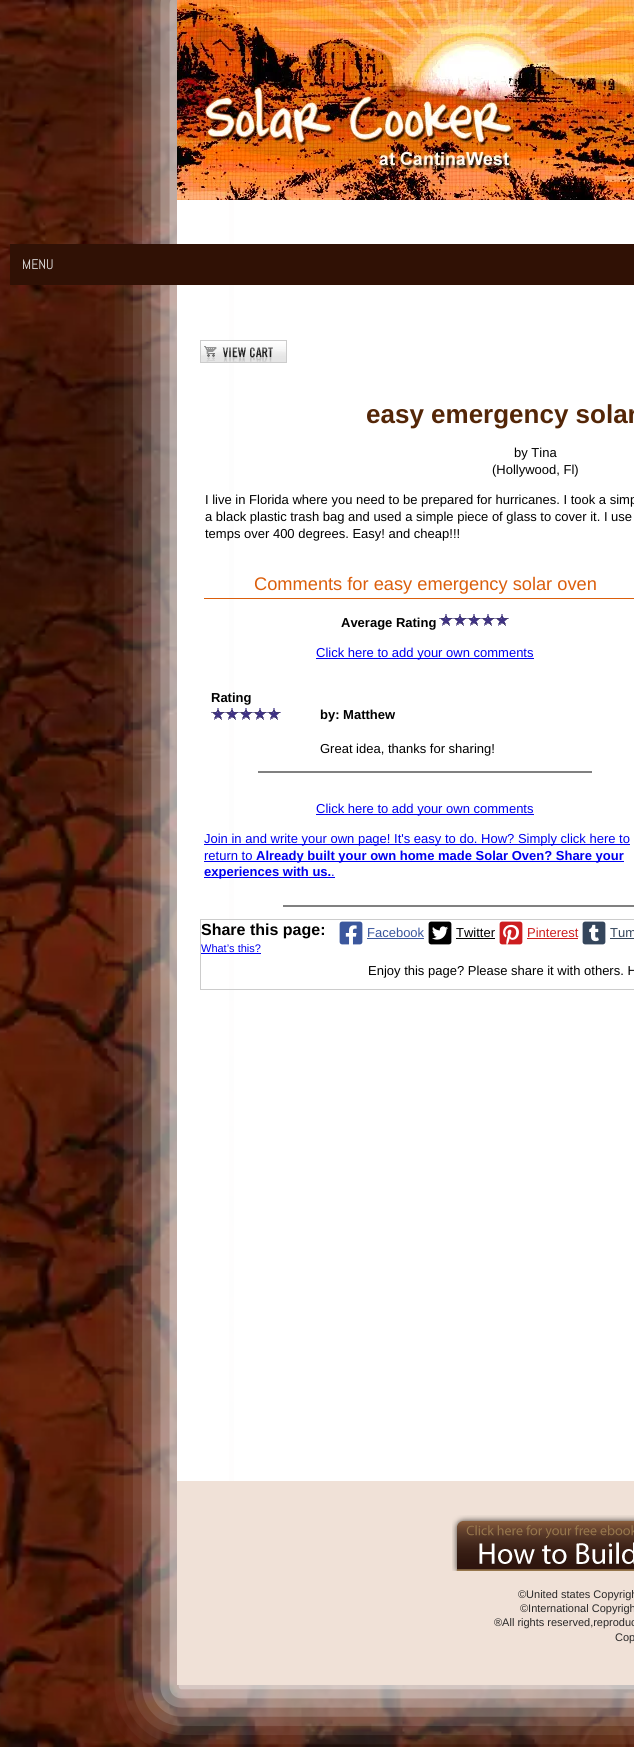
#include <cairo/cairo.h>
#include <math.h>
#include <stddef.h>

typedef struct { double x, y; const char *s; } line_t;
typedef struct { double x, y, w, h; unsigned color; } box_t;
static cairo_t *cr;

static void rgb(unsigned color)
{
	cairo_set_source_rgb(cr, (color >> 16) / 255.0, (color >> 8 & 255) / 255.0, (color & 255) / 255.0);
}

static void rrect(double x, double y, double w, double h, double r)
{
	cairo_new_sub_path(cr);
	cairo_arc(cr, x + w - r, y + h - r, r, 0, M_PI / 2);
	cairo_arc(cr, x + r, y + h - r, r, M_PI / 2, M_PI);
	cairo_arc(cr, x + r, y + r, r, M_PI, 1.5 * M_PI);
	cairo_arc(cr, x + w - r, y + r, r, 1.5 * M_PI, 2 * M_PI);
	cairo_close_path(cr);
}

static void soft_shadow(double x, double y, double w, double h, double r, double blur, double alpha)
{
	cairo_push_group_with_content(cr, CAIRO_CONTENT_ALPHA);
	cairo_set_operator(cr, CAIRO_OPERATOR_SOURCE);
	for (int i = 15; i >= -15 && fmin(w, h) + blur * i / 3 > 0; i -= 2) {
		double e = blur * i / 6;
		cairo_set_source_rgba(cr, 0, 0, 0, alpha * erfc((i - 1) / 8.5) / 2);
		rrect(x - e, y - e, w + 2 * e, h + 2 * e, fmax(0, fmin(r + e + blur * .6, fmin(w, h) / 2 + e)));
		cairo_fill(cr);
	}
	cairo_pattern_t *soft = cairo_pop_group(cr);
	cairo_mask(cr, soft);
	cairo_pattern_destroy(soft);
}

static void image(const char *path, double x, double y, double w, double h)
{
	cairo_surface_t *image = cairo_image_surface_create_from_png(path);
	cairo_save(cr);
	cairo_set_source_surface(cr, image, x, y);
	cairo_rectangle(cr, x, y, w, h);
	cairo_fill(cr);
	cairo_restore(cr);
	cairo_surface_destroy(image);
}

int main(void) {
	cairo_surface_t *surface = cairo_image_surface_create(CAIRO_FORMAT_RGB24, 634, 1747);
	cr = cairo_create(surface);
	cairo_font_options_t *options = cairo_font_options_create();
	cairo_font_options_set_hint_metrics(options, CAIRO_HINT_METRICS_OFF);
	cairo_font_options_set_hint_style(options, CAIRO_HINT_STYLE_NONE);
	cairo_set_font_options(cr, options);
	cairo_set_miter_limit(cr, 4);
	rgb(0xffffff);
	cairo_paint(cr);
	image("img/1.png", 0, 0, 634, 1747);
	soft_shadow(165, -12, 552, 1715, 0, 27.5, 1);
	rgb(0xffffff);
	cairo_rectangle(cr, 177, 200, 52, 1281);
	cairo_fill(cr);
	image("img/2.png", 177, 0, 457, 200);
	rgb(0x301105);
	cairo_rectangle(cr, 10, 244, 624, 41);
	cairo_fill(cr);
	image("img/3.png", 200, 340, 87, 23);
	rgb(0xdb5e0b);
	cairo_rectangle(cr, 204, 598, 430, 1);
	cairo_fill(cr);
	image("img/4.png", 439, 614, 14, 12);
	image("img/4.png", 453, 614, 14, 12);
	image("img/4.png", 467, 614, 14, 12);
	image("img/4.png", 481, 614, 14, 12);
	image("img/4.png", 495, 614, 14, 12);
	rgb(0x0000ee);
	cairo_rectangle(cr, 316, 658, 218, 1);
	cairo_fill(cr);
	image("img/4.png", 211, 708, 14, 12);
	image("img/4.png", 225, 708, 14, 12);
	image("img/4.png", 239, 708, 14, 12);
	image("img/4.png", 253, 708, 14, 12);
	image("img/4.png", 267, 708, 14, 12);
	{
		static const box_t items[] = {
			{258, 771, 334, 2, 0x808080},
			{316, 814, 218, 1, 0x0000ee},
			{204, 844, 426, 1, 0x0000ee},
			{204, 861, 420, 1, 0x0000ee},
			{204, 877, 131, 1, 0x0000ee},
			{283, 905, 351, 2, 0x808080},
		};
		for (size_t i = 0; i < sizeof items / sizeof *items; i++) {
			rgb(items[i].color);
			cairo_rectangle(cr, items[i].x, items[i].y, items[i].w, items[i].h);
			cairo_fill(cr);
		}
	}
	cairo_rectangle(cr, 200.5, 919.5, 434, 70);
	rgb(0xcccccc);
	cairo_set_line_width(cr, 1);
	cairo_stroke(cr);
	rgb(0x0000ee);
	cairo_rectangle(cr, 201, 953, 60, 1);
	cairo_fill(cr);
	image("img/5.png", 339, 921, 24, 24);
	rgb(0x3b579d);
	cairo_rectangle(cr, 367, 938, 57, 1);
	cairo_fill(cr);
	image("img/6.png", 428, 921, 24, 24);
	rgb(0x000000);
	cairo_rectangle(cr, 456, 938, 39, 1);
	cairo_fill(cr);
	image("img/7.png", 499, 921, 24, 24);
	rgb(0xcd1d1f);
	cairo_rectangle(cr, 527, 938, 51, 1);
	cairo_fill(cr);
	image("img/8.png", 582, 921, 24, 24);
	rgb(0x35465c);
	cairo_rectangle(cr, 610, 938, 24, 1);
	cairo_fill(cr);
	rgb(0xf0e1d7);
	cairo_rectangle(cr, 177, 1481, 457, 204);
	cairo_fill(cr);
	image("img/9.png", 452, 1515, 182, 56);
	cairo_select_font_face(cr, "Abel", CAIRO_FONT_SLANT_NORMAL, CAIRO_FONT_WEIGHT_NORMAL);
	cairo_set_font_size(cr, 14);
	rgb(0xe3e3e3);
	cairo_move_to(cr, 22, 269);
	cairo_show_text(cr, "MENU");
	cairo_select_font_face(cr, "Liberation Sans", CAIRO_FONT_SLANT_NORMAL, CAIRO_FONT_WEIGHT_BOLD);
	cairo_set_font_size(cr, 26);
	rgb(0x542607);
	cairo_move_to(cr, 366, 423);
	cairo_show_text(cr, "easy emergency solar");
	cairo_select_font_face(cr, "Liberation Sans", CAIRO_FONT_SLANT_NORMAL, CAIRO_FONT_WEIGHT_NORMAL);
	cairo_set_font_size(cr, 13);
	rgb(0x000000);
	{
		static const line_t items[] = {
			{514, 457, "by Tina"},
			{492, 474, "(Hollywood, Fl)"},
			{205, 504, "I live in Florida where you need to be prepared for hurricanes. I took a simp"},
			{205, 521, "a black plastic trash bag and used a simple piece of glass to cover it. I use"},
			{205, 538, "temps over 400 degrees. Easy! and cheap!!!"},
		};
		for (size_t i = 0; i < sizeof items / sizeof *items; i++) {
			cairo_move_to(cr, items[i].x, items[i].y);
			cairo_show_text(cr, items[i].s);
		}
	}
	cairo_set_font_size(cr, 18.25);
	rgb(0xdb5e0b);
	cairo_move_to(cr, 254, 590);
	cairo_show_text(cr, "Comments for easy emergency solar oven");
	cairo_select_font_face(cr, "Liberation Sans", CAIRO_FONT_SLANT_NORMAL, CAIRO_FONT_WEIGHT_BOLD);
	cairo_set_font_size(cr, 13);
	rgb(0x000000);
	cairo_move_to(cr, 341, 627);
	cairo_show_text(cr, "Average Rating");
	cairo_select_font_face(cr, "Liberation Sans", CAIRO_FONT_SLANT_NORMAL, CAIRO_FONT_WEIGHT_NORMAL);
	rgb(0x0000ee);
	cairo_move_to(cr, 316, 657);
	cairo_show_text(cr, "Click here to add your own comments");
	cairo_select_font_face(cr, "Liberation Sans", CAIRO_FONT_SLANT_NORMAL, CAIRO_FONT_WEIGHT_BOLD);
	rgb(0x000000);
	cairo_move_to(cr, 211, 702);
	cairo_show_text(cr, "Rating");
	cairo_move_to(cr, 320, 719);
	cairo_show_text(cr, "by: Matthew");
	cairo_select_font_face(cr, "Liberation Sans", CAIRO_FONT_SLANT_NORMAL, CAIRO_FONT_WEIGHT_NORMAL);
	cairo_move_to(cr, 320, 753);
	cairo_show_text(cr, "Great idea, thanks for sharing!");
	rgb(0x0000ee);
	{
		static const line_t items[] = {
			{316, 813, "Click here to add your own comments"},
			{204, 843, "Join in and write your own page! It's easy to do. How? Simply click here to"},
			{204, 860, "return to"},
		};
		for (size_t i = 0; i < sizeof items / sizeof *items; i++) {
			cairo_move_to(cr, items[i].x, items[i].y);
			cairo_show_text(cr, items[i].s);
		}
	}
	cairo_select_font_face(cr, "Liberation Sans", CAIRO_FONT_SLANT_NORMAL, CAIRO_FONT_WEIGHT_BOLD);
	cairo_move_to(cr, 256, 860);
	cairo_show_text(cr, "Already built your own home made Solar Oven? Share your");
	cairo_move_to(cr, 204, 876);
	cairo_show_text(cr, "experiences with us.");
	cairo_select_font_face(cr, "Liberation Sans", CAIRO_FONT_SLANT_NORMAL, CAIRO_FONT_WEIGHT_NORMAL);
	cairo_move_to(cr, 331, 876);
	cairo_show_text(cr, ".");
	cairo_select_font_face(cr, "Liberation Sans", CAIRO_FONT_SLANT_NORMAL, CAIRO_FONT_WEIGHT_BOLD);
	cairo_set_font_size(cr, 16);
	rgb(0x000000);
	cairo_move_to(cr, 201, 935);
	cairo_show_text(cr, "Share this page:");
	cairo_select_font_face(cr, "Liberation Sans", CAIRO_FONT_SLANT_NORMAL, CAIRO_FONT_WEIGHT_NORMAL);
	cairo_set_font_size(cr, 11);
	rgb(0x0000ee);
	cairo_move_to(cr, 201, 952);
	cairo_show_text(cr, "What’s this?");
	cairo_set_font_size(cr, 13);
	rgb(0x3b579d);
	cairo_move_to(cr, 367, 937);
	cairo_show_text(cr, "Facebook");
	rgb(0x000000);
	cairo_move_to(cr, 456, 937);
	cairo_show_text(cr, "Twitter");
	rgb(0xcd1d1f);
	cairo_move_to(cr, 527, 937);
	cairo_show_text(cr, "Pinterest");
	rgb(0x35465c);
	cairo_move_to(cr, 610, 937);
	cairo_show_text(cr, "Tum");
	rgb(0x000000);
	cairo_move_to(cr, 368, 975);
	cairo_show_text(cr, "Enjoy this page? Please share it with others. H");
	cairo_set_font_size(cr, 11);
	rgb(0x292828);
	{
		static const line_t items[] = {
			{518, 1598, "©United states Copyrigh"},
			{520, 1612, "©International Copyrigh"},
			{494, 1626, "®All rights reserved,reproduc"},
			{615, 1641, "Cop"},
		};
		for (size_t i = 0; i < sizeof items / sizeof *items; i++) {
			cairo_move_to(cr, items[i].x, items[i].y);
			cairo_show_text(cr, items[i].s);
		}
	}
	cairo_surface_write_to_png(surface, "page.png");
	cairo_font_options_destroy(options);
	cairo_destroy(cr);
	cairo_surface_destroy(surface);
	return 0;
}
